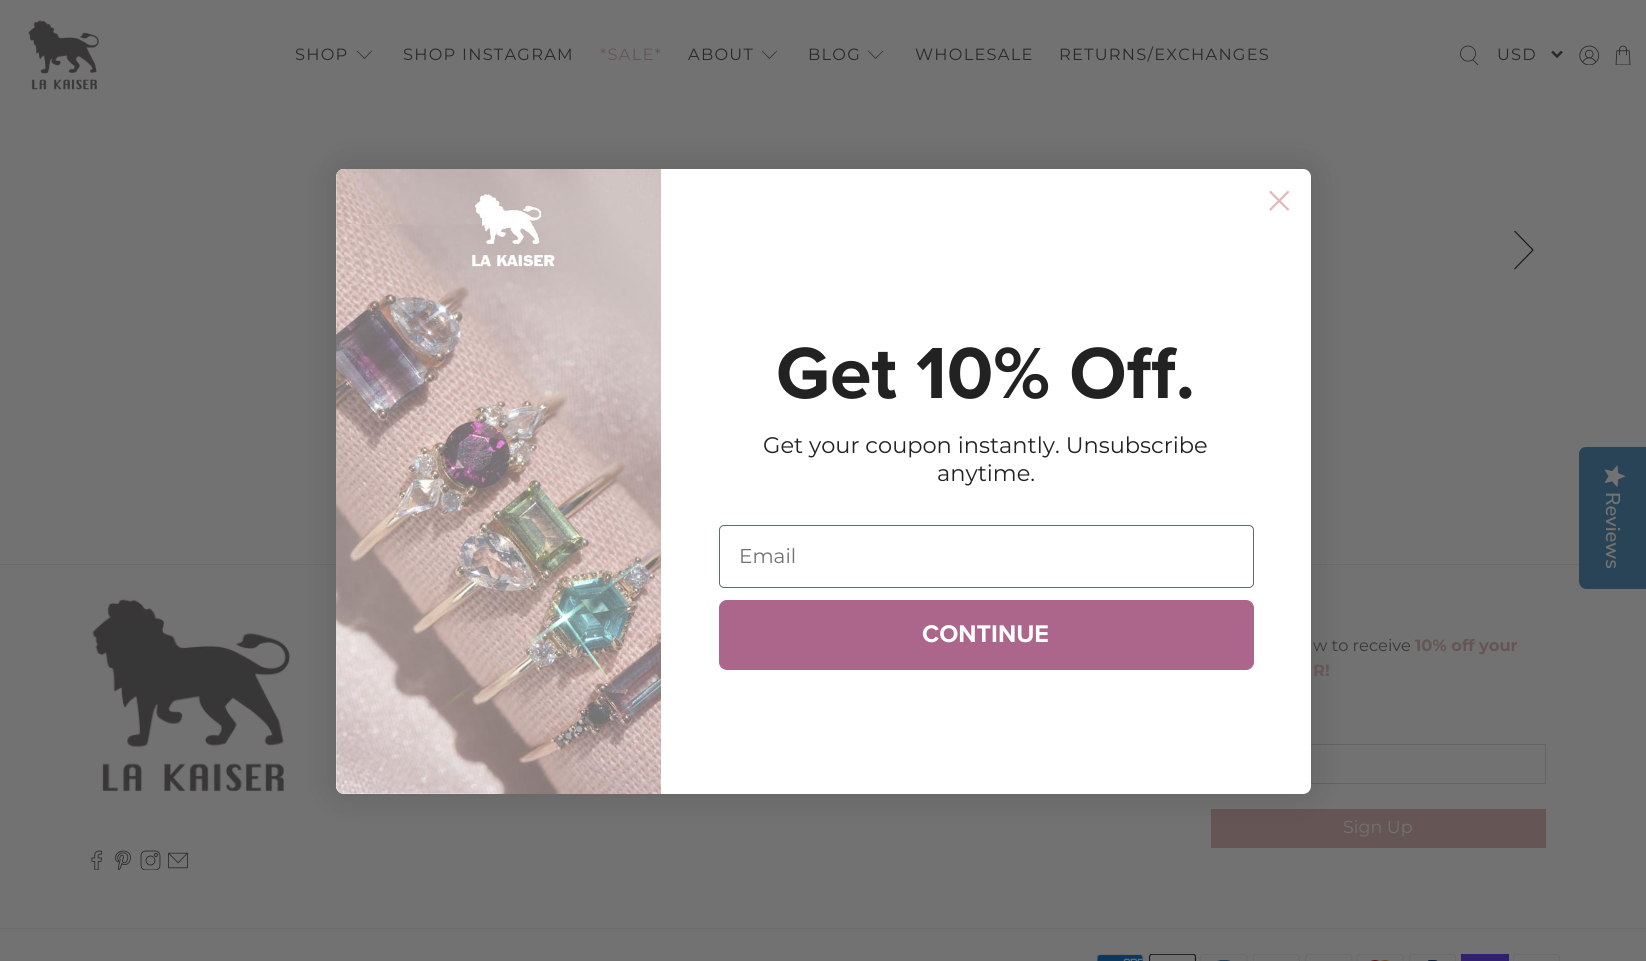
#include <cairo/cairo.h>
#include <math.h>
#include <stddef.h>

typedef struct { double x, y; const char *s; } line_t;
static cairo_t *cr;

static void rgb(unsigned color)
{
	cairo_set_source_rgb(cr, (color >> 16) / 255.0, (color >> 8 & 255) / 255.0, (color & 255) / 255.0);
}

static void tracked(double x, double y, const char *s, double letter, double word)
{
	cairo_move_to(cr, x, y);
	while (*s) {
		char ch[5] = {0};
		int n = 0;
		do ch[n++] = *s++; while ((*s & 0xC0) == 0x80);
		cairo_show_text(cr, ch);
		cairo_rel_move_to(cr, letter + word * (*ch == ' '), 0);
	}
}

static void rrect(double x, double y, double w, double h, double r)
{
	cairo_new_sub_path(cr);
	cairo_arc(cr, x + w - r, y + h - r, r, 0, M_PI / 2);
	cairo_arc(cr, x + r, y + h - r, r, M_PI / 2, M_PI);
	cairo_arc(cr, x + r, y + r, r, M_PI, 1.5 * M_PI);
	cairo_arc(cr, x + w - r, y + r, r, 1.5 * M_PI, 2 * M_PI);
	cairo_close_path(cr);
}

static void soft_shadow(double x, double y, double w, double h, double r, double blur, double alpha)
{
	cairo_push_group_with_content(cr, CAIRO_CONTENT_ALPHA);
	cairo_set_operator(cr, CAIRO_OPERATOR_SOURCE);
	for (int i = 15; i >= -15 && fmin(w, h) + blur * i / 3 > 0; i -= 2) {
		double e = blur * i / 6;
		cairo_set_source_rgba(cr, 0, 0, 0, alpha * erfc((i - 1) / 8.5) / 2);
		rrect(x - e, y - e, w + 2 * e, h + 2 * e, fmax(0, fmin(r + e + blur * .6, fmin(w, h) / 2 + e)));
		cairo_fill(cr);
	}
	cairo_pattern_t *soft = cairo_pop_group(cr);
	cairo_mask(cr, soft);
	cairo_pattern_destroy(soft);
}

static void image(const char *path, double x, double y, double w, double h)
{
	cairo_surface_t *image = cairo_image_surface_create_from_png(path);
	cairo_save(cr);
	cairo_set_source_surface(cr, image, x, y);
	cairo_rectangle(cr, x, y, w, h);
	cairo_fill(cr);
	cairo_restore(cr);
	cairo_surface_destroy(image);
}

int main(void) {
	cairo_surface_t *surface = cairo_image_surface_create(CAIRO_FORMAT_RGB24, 1646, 961);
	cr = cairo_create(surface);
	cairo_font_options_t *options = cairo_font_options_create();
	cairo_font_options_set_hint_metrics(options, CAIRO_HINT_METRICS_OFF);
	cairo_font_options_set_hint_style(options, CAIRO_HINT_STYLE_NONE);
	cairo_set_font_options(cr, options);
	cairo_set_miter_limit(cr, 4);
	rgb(0x727272);
	cairo_paint(cr);
	image("img/1.png", 28, 20, 71, 70);
	image("img/2.png", 356, 50, 16, 9);
	image("img/2.png", 761, 50, 16, 9);
	image("img/3.png", 868, 50, 16, 9);
	image("img/4.png", 1460, 45, 19, 20);
	cairo_new_path(cr);
	cairo_move_to(cr, 1552, 51.5);
	cairo_line_to(cr, 1557, 56.5);
	cairo_line_to(cr, 1562, 51.5);
	rgb(0x2a2a2b);
	cairo_set_line_width(cr, 2.5);
	cairo_stroke(cr);
	image("img/5.png", 1579, 45, 21, 20);
	image("img/6.png", 1615, 45, 16, 20);
	cairo_new_path(cr);
	cairo_move_to(cr, 1514.5, 231);
	cairo_line_to(cr, 1533, 250);
	cairo_line_to(cr, 1514.5, 269);
	rgb(0x1a1a1a);
	cairo_set_line_width(cr, 1.2);
	cairo_stroke(cr);
	rgb(0x6b6b6b);
	cairo_rectangle(cr, 0, 564, 1579, 1);
	cairo_fill(cr);
	image("img/9.png", 92, 599, 198, 193);
	cairo_rectangle(cr, 1211.5, 744.5, 334, 39);
	rgb(0x646464);
	cairo_set_line_width(cr, 1);
	cairo_stroke(cr);
	rgb(0x665555);
	cairo_rectangle(cr, 1211, 809, 335, 39);
	cairo_fill(cr);
	rgb(0x000000);
	soft_shadow(336, 169, 975, 625, 8, 19, 0.15);
	rgb(0xffffff);
	rrect(336, 169, 975, 625, 8);
	cairo_fill(cr);
	cairo_new_path(cr);
	cairo_move_to(cr, 1270.5, 192);
	cairo_line_to(cr, 1288, 209.5);
	cairo_move_to(cr, 1270.5, 209.5);
	cairo_line_to(cr, 1288, 192);
	cairo_close_path(cr);
	rgb(0xe2b7b6);
	cairo_set_line_width(cr, 2.2);
	cairo_set_line_cap(cr, CAIRO_LINE_CAP_ROUND);
	cairo_set_line_join(cr, CAIRO_LINE_JOIN_ROUND);
	cairo_stroke(cr);
	image("img/7.png", 336, 169, 325, 625);
	rrect(719.5, 525.5, 534, 62, 4.5);
	rgb(0x606a72);
	cairo_set_line_width(cr, 1);
	cairo_set_line_cap(cr, CAIRO_LINE_CAP_BUTT);
	cairo_set_line_join(cr, CAIRO_LINE_JOIN_MITER);
	cairo_stroke(cr);
	rgb(0xac668c);
	rrect(719.5, 600.5, 534, 69, 7.5);
	cairo_fill_preserve(cr);
	cairo_stroke(cr);
	rgb(0x294457);
	cairo_new_path(cr);
	cairo_move_to(cr, 1646, 447);
	cairo_line_to(cr, 1646, 589);
	cairo_line_to(cr, 1586, 589);
	cairo_curve_to(cr, 1582, 589, 1579, 585, 1579, 581);
	cairo_line_to(cr, 1579, 454);
	cairo_curve_to(cr, 1579, 450, 1582, 447, 1586, 447);
	cairo_close_path(cr);
	cairo_fill(cr);
	image("img/8.png", 1604, 465, 22, 23);
	rgb(0x6b6b6b);
	cairo_rectangle(cr, 0, 928, 1646, 1);
	cairo_fill(cr);
	image("img/10.png", 91, 850, 12, 20);
	image("img/11.png", 115, 850, 16, 20);
	image("img/12.png", 140, 850, 21, 20);
	image("img/13.png", 168, 852, 20, 17);
	image("img/14.png", 1096, 954, 48, 7);
	image("img/15.png", 1149, 954, 47, 7);
	image("img/16.png", 1200, 954, 48, 7);
	image("img/17.png", 1253, 954, 47, 7);
	image("img/18.png", 1305, 954, 48, 7);
	image("img/19.png", 1356, 954, 48, 7);
	image("img/20.png", 1409, 954, 47, 7);
	rgb(0x30206e);
	cairo_rectangle(cr, 1461, 954, 48, 7);
	cairo_fill(cr);
	image("img/17.png", 1513, 954, 47, 7);
	cairo_select_font_face(cr, "Montserrat", CAIRO_FONT_SLANT_NORMAL, CAIRO_FONT_WEIGHT_NORMAL);
	cairo_set_font_size(cr, 16.25);
	rgb(0x2a2a2b);
	tracked(295, 60, "SHOP", 1.25, 0);
	tracked(403, 60, "SHOP INSTAGRAM", 1.25, 0);
	rgb(0x665555);
	tracked(600, 60, "*SALE*", 1.25, 0);
	rgb(0x2a2a2b);
	{
		static const line_t items[] = {
			{688, 60, "ABOUT"},
			{808, 60, "BLOG"},
			{915, 60, "WHOLESALE"},
			{1059, 60, "RETURNS/EXCHANGES"},
			{1497, 60, "USD"},
		};
		for (size_t i = 0; i < sizeof items / sizeof *items; i++) {
			tracked(items[i].x, items[i].y, items[i].s, 1.25, 0);
		}
	}
	cairo_select_font_face(cr, "Proxima Nova", CAIRO_FONT_SLANT_NORMAL, CAIRO_FONT_WEIGHT_BOLD);
	cairo_set_font_size(cr, 75);
	rgb(0x222222);
	cairo_move_to(cr, 776, 398);
	cairo_show_text(cr, "Get 10% Off.");
	cairo_select_font_face(cr, "Montserrat", CAIRO_FONT_SLANT_NORMAL, CAIRO_FONT_WEIGHT_NORMAL);
	cairo_set_font_size(cr, 22.5);
	cairo_move_to(cr, 763, 453);
	cairo_show_text(cr, "Get your coupon instantly. Unsubscribe");
	cairo_move_to(cr, 937, 481);
	cairo_show_text(cr, "anytime.");
	cairo_set_font_size(cr, 20);
	rgb(0x727272);
	cairo_move_to(cr, 739, 563);
	cairo_show_text(cr, "Email");
	cairo_select_font_face(cr, "Proxima Nova", CAIRO_FONT_SLANT_NORMAL, CAIRO_FONT_WEIGHT_BOLD);
	cairo_set_font_size(cr, 25);
	rgb(0xffffff);
	cairo_move_to(cr, 922, 642);
	cairo_show_text(cr, "CONTINUE");
	cairo_select_font_face(cr, "Nunito Sans ExtraLight", CAIRO_FONT_SLANT_NORMAL, CAIRO_FONT_WEIGHT_NORMAL);
	cairo_set_font_size(cr, 20);
	rgb(0x727272);
	cairo_save(cr);
	cairo_translate(cr, 1606, 492);
	cairo_rotate(cr, 90 * M_PI / 180);
	cairo_move_to(cr, 0, 0);
	cairo_show_text(cr, "Reviews");
	cairo_restore(cr);
	cairo_select_font_face(cr, "Montserrat", CAIRO_FONT_SLANT_NORMAL, CAIRO_FONT_WEIGHT_NORMAL);
	cairo_set_font_size(cr, 16.25);
	rgb(0x393738);
	cairo_move_to(cr, 1313, 651);
	cairo_show_text(cr, "w to receive");
	cairo_select_font_face(cr, "Montserrat", CAIRO_FONT_SLANT_NORMAL, CAIRO_FONT_WEIGHT_BOLD);
	rgb(0x665555);
	cairo_move_to(cr, 1415, 651);
	cairo_show_text(cr, "10% off your");
	cairo_move_to(cr, 1313, 676);
	cairo_show_text(cr, "R!");
	cairo_select_font_face(cr, "Montserrat", CAIRO_FONT_SLANT_NORMAL, CAIRO_FONT_WEIGHT_NORMAL);
	cairo_set_font_size(cr, 17.5);
	rgb(0x727272);
	cairo_move_to(cr, 1343, 833);
	cairo_show_text(cr, "Sign Up");
	cairo_surface_write_to_png(surface, "page.png");
	cairo_font_options_destroy(options);
	cairo_destroy(cr);
	cairo_surface_destroy(surface);
	return 0;
}
